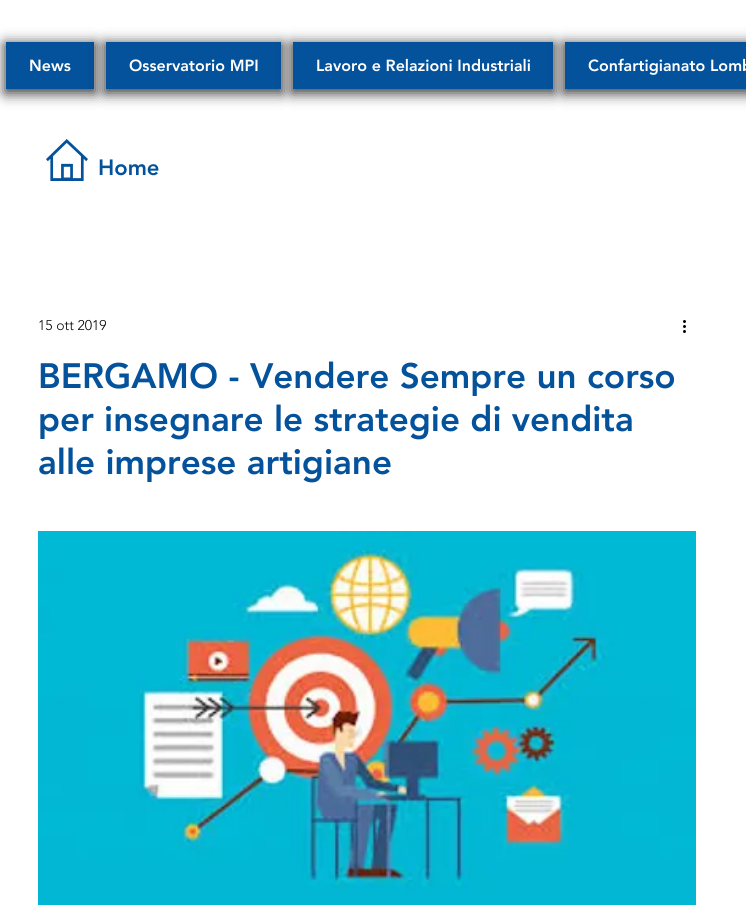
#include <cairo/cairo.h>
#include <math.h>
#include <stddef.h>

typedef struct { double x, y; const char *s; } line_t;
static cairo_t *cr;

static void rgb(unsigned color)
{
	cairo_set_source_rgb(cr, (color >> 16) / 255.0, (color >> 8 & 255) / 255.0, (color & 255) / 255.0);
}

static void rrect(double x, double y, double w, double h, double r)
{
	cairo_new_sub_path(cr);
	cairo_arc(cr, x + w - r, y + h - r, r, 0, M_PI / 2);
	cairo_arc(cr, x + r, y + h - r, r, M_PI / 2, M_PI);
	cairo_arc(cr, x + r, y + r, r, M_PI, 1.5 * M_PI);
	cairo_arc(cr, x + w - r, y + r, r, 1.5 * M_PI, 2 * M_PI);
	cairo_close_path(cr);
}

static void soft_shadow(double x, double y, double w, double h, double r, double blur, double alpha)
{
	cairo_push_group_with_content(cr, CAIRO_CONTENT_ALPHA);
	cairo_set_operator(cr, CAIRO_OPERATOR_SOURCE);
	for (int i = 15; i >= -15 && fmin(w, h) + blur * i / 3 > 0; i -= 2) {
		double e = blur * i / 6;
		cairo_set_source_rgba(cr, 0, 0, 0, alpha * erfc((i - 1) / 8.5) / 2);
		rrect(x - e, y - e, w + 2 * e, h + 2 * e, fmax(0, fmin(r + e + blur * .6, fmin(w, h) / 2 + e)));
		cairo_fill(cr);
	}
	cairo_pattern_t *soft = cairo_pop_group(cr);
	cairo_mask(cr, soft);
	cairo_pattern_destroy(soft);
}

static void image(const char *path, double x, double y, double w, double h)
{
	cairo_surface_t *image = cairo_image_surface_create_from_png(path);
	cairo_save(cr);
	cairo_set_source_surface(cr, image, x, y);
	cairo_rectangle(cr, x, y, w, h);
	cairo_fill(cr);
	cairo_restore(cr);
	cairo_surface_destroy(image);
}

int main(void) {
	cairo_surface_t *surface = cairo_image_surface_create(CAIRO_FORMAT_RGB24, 746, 906);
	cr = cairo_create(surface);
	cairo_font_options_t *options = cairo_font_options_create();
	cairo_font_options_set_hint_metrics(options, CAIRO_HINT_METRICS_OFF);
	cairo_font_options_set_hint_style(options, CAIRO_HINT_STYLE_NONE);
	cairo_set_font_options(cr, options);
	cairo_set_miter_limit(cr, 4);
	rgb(0xffffff);
	cairo_paint(cr);
	rgb(0x000000);
	soft_shadow(5, 44, 90, 49, 0, 7, 0.82);
	rgb(0x04529b);
	cairo_rectangle(cr, 6, 42, 88, 47);
	cairo_fill(cr);
	rgb(0x000000);
	soft_shadow(105, 44, 177, 49, 0, 7, 0.82);
	rgb(0x04529b);
	cairo_rectangle(cr, 106, 42, 175, 47);
	cairo_fill(cr);
	rgb(0x000000);
	soft_shadow(292, 44, 262, 49, 0, 7, 0.82);
	rgb(0x04529b);
	cairo_rectangle(cr, 293, 42, 260, 47);
	cairo_fill(cr);
	rgb(0x000000);
	soft_shadow(564, 44, 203, 49, 0, 7, 0.82);
	rgb(0x04529b);
	cairo_rectangle(cr, 565, 42, 181, 47);
	cairo_fill(cr);
	image("img/1.png", 46, 139, 42, 42);
	image("img/2.png", 683, 320, 3, 13);
	image("img/3.png", 38, 531, 658, 374);
	cairo_select_font_face(cr, "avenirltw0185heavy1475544 Black", CAIRO_FONT_SLANT_NORMAL, CAIRO_FONT_WEIGHT_NORMAL);
	cairo_set_font_size(cr, 16);
	rgb(0xffffff);
	{
		static const line_t items[] = {
			{29, 71, "News"},
			{129, 71, "Osservatorio MPI"},
			{316, 71, "Lavoro e Relazioni Industriali"},
			{588, 71, "Confartigianato Lomb"},
		};
		for (size_t i = 0; i < sizeof items / sizeof *items; i++) {
			cairo_move_to(cr, items[i].x, items[i].y);
			cairo_show_text(cr, items[i].s);
		}
	}
	cairo_set_font_size(cr, 22);
	rgb(0x04529b);
	cairo_move_to(cr, 98, 175);
	cairo_show_text(cr, "Home");
	cairo_select_font_face(cr, "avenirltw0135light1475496 Light", CAIRO_FONT_SLANT_NORMAL, CAIRO_FONT_WEIGHT_NORMAL);
	cairo_set_font_size(cr, 14);
	rgb(0x000000);
	cairo_move_to(cr, 38, 330);
	cairo_show_text(cr, "15 ott 2019");
	cairo_select_font_face(cr, "avenirltw0185heavy1475544 Black", CAIRO_FONT_SLANT_NORMAL, CAIRO_FONT_WEIGHT_NORMAL);
	cairo_set_font_size(cr, 35);
	rgb(0x04529b);
	{
		static const line_t items[] = {
			{38, 388, "BERGAMO - Vendere Sempre un corso"},
			{38, 431, "per insegnare le strategie di vendita"},
			{38, 474, "alle imprese artigiane"},
		};
		for (size_t i = 0; i < sizeof items / sizeof *items; i++) {
			cairo_move_to(cr, items[i].x, items[i].y);
			cairo_show_text(cr, items[i].s);
		}
	}
	cairo_surface_write_to_png(surface, "page.png");
	cairo_font_options_destroy(options);
	cairo_destroy(cr);
	cairo_surface_destroy(surface);
	return 0;
}
